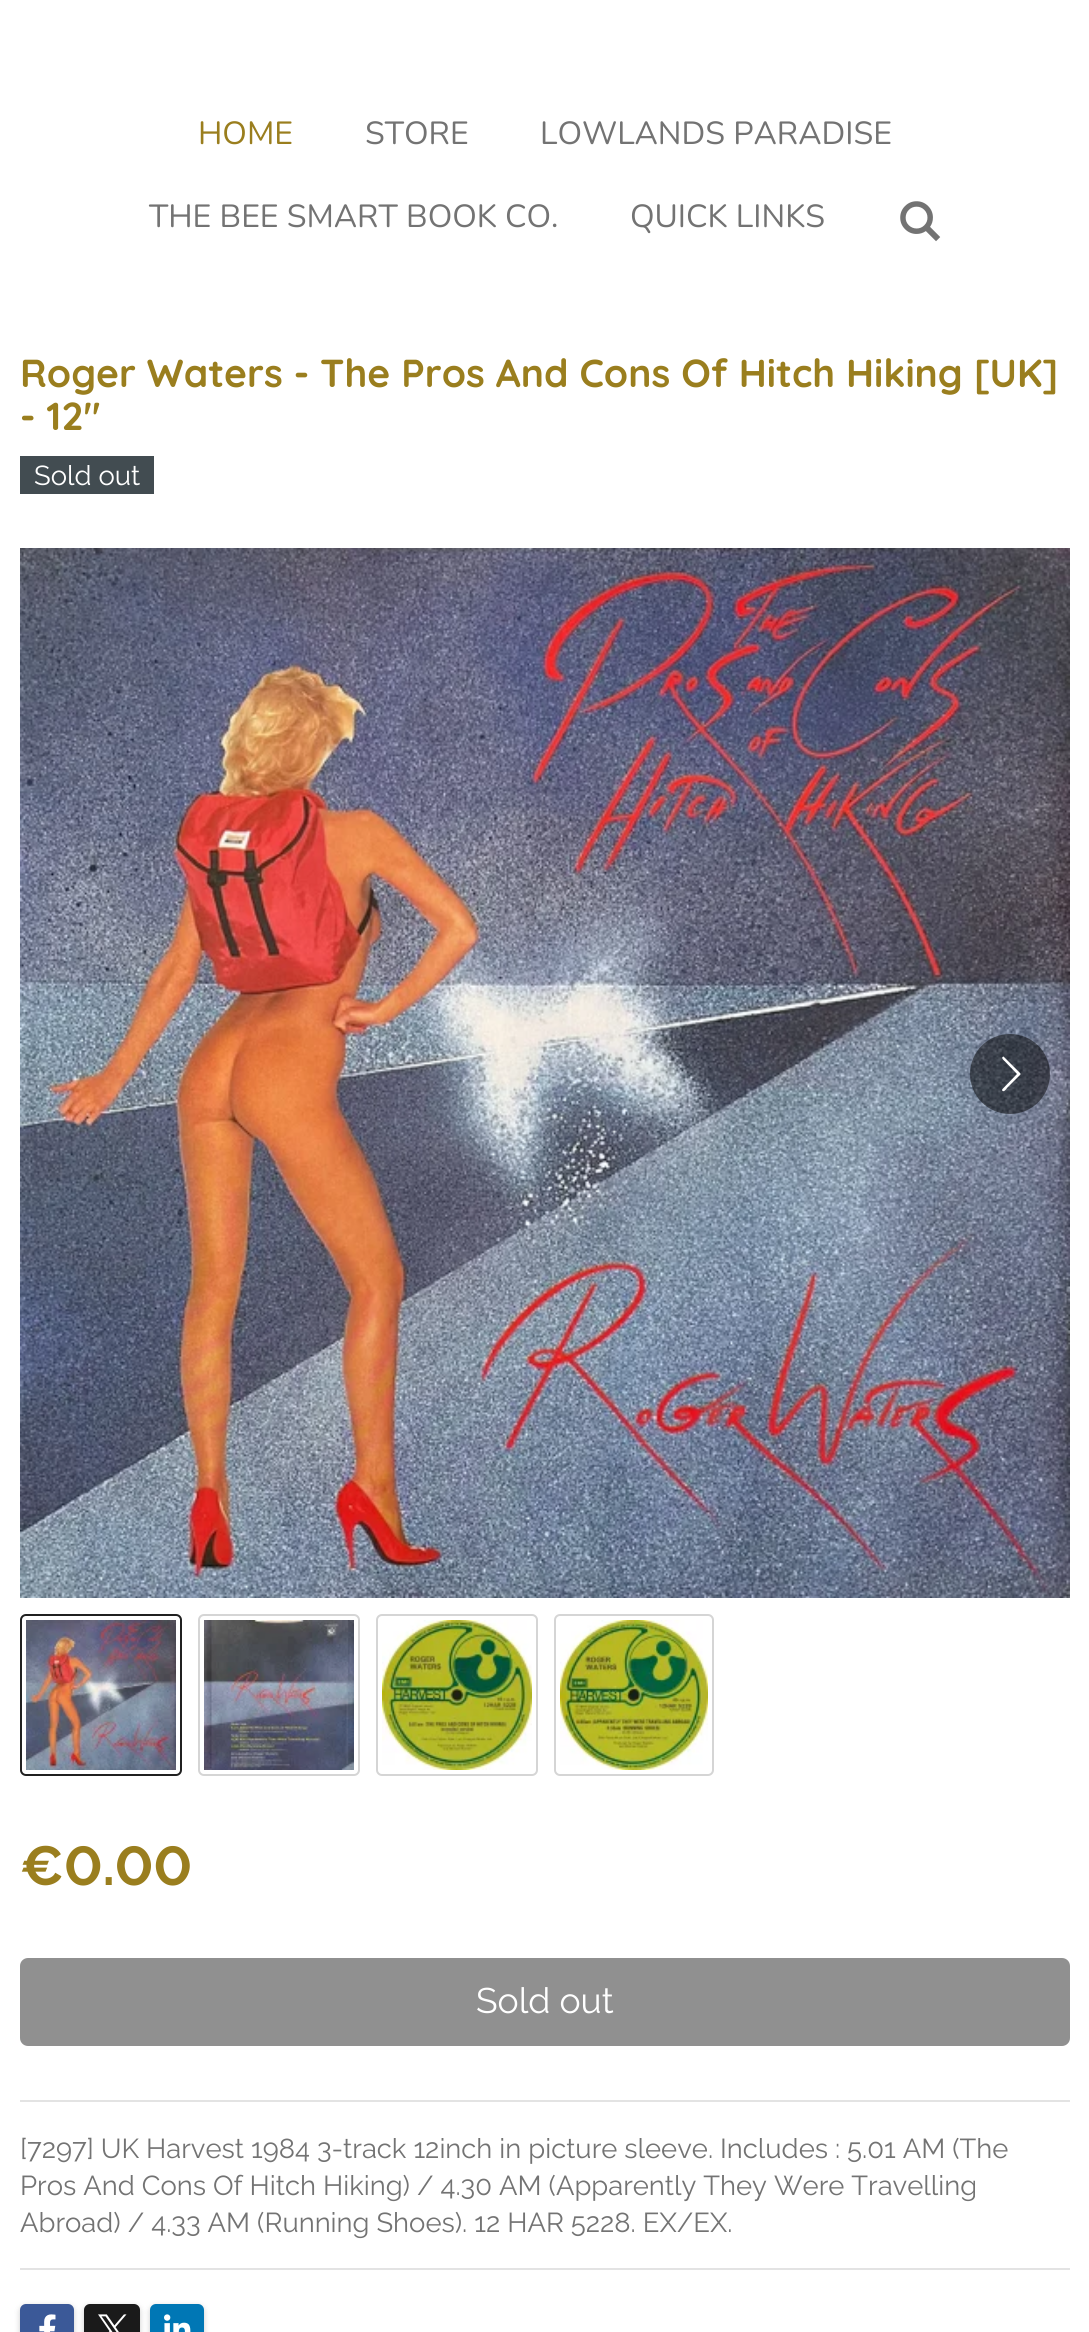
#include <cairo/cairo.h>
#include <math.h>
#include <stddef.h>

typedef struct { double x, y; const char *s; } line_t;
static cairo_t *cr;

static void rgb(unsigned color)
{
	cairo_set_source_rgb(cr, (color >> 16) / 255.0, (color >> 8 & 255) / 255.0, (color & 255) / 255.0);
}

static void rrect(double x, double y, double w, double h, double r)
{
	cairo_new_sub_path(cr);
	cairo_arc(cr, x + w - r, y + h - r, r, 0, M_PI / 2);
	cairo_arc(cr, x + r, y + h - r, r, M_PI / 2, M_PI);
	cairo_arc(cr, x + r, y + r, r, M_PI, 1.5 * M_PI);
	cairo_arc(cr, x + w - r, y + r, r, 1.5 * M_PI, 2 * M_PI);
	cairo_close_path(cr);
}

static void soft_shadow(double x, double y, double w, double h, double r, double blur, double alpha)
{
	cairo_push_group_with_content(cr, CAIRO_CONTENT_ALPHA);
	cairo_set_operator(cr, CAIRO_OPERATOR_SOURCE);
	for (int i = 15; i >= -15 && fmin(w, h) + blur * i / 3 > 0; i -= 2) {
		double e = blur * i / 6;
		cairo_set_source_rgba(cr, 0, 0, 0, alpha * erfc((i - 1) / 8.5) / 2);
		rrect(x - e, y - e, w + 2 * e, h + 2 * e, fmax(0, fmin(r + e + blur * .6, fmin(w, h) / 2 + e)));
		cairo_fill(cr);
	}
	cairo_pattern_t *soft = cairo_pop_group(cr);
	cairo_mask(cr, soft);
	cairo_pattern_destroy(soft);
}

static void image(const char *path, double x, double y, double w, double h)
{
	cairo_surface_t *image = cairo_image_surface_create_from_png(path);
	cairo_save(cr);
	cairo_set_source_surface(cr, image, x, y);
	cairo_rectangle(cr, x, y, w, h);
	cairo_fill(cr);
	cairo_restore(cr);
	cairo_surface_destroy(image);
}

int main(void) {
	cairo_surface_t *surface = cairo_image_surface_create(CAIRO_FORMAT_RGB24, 1089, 2332);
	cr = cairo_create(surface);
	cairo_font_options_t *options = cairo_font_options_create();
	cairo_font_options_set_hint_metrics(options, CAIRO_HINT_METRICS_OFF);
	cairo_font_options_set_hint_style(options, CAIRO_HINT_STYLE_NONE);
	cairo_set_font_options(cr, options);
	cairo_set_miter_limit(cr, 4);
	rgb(0xffffff);
	cairo_paint(cr);
	image("img/1.png", 900, 201, 41, 41);
	rgb(0x424c51);
	cairo_rectangle(cr, 20, 456, 134, 38);
	cairo_fill(cr);
	image("img/2.png", 20, 548, 1050, 1050);
	cairo_set_source_rgba(cr, 0, 0, 0, 0.5);
	cairo_arc(cr, 1010, 1074, 40, 0, 2 * M_PI);
	cairo_fill(cr);
	rgb(0xffffff);
	cairo_new_path(cr);
	cairo_move_to(cr, 1002.5, 1089);
	cairo_line_to(cr, 1017, 1074);
	cairo_line_to(cr, 1005, 1061.5);
	cairo_curve_to(cr, 1004.5, 1061, 1000, 1057.5, 1003.5, 1056.5);
	cairo_line_to(cr, 1004, 1057);
	cairo_line_to(cr, 1020.5, 1073.5);
	cairo_line_to(cr, 1020.5, 1074.5);
	cairo_line_to(cr, 1007, 1088);
	cairo_curve_to(cr, 1007, 1088.5, 1003, 1093.5, 1002, 1090);
	cairo_close_path(cr);
	cairo_fill(cr);
	rrect(21, 1615, 160, 160, 5);
	rgb(0x202020);
	cairo_stroke(cr);
	image("img/3.png", 26, 1620, 150, 150);
	rrect(199, 1615, 160, 160, 5);
	rgb(0xd5d5d5);
	cairo_stroke(cr);
	image("img/4.png", 204, 1620, 150, 150);
	rrect(377, 1615, 160, 160, 5);
	cairo_stroke(cr);
	image("img/5.png", 382, 1620, 150, 150);
	rrect(555, 1615, 158, 160, 5);
	cairo_stroke(cr);
	image("img/6.png", 560, 1620, 148, 150);
	rgb(0x909090);
	rrect(20, 1958, 1050, 88, 8);
	cairo_fill(cr);
	rgb(0xe3e3e3);
	cairo_rectangle(cr, 20, 2100, 1050, 2);
	cairo_fill(cr);
	cairo_rectangle(cr, 20, 2268, 1050, 2);
	cairo_fill(cr);
	rgb(0x000000);
	soft_shadow(20, 2306, 54, 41, 6, 3, 0.2);
	rgb(0x3b5998);
	rrect(20, 2304, 54, 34, 6);
	cairo_fill(cr);
	image("img/7.png", 39, 2314, 17, 18);
	rgb(0x000000);
	soft_shadow(84, 2306, 56, 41, 6, 3, 0.2);
	rgb(0x1a1a1a);
	rrect(84, 2304, 56, 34, 6);
	cairo_fill(cr);
	image("img/8.png", 98, 2314, 29, 18);
	rgb(0x000000);
	soft_shadow(150, 2306, 54, 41, 6, 3, 0.2);
	rgb(0x0077b5);
	rrect(150, 2304, 54, 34, 6);
	cairo_fill(cr);
	image("img/9.png", 164, 2314, 27, 18);
	cairo_select_font_face(cr, "Nunito", CAIRO_FONT_SLANT_NORMAL, CAIRO_FONT_WEIGHT_NORMAL);
	cairo_set_font_size(cr, 32);
	rgb(0x9a7e1e);
	cairo_move_to(cr, 198, 144);
	cairo_show_text(cr, "HOME");
	rgb(0x737373);
	{
		static const line_t items[] = {
			{365, 144, "STORE"},
			{540, 144, "LOWLANDS PARADISE"},
			{149, 227, "THE BEE SMART BOOK CO."},
			{630, 227, "QUICK LINKS"},
		};
		for (size_t i = 0; i < sizeof items / sizeof *items; i++) {
			cairo_move_to(cr, items[i].x, items[i].y);
			cairo_show_text(cr, items[i].s);
		}
	}
	cairo_select_font_face(cr, "Quicksand", CAIRO_FONT_SLANT_NORMAL, CAIRO_FONT_WEIGHT_BOLD);
	cairo_set_font_size(cr, 39);
	rgb(0x9a7e1e);
	cairo_move_to(cr, 20, 387);
	cairo_show_text(cr, "Roger Waters - The Pros And Cons Of Hitch Hiking [UK]");
	cairo_move_to(cr, 20, 430);
	cairo_show_text(cr, "- 12\"");
	cairo_select_font_face(cr, "Raleway", CAIRO_FONT_SLANT_NORMAL, CAIRO_FONT_WEIGHT_NORMAL);
	cairo_set_font_size(cr, 27.4);
	rgb(0xffffff);
	cairo_move_to(cr, 34, 485);
	cairo_show_text(cr, "Sold out");
	cairo_select_font_face(cr, "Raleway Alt", CAIRO_FONT_SLANT_NORMAL, CAIRO_FONT_WEIGHT_BOLD);
	cairo_set_font_size(cr, 55);
	rgb(0x9a7e1e);
	cairo_move_to(cr, 20, 1885);
	cairo_show_text(cr, "€0.00");
	cairo_select_font_face(cr, "Raleway", CAIRO_FONT_SLANT_NORMAL, CAIRO_FONT_WEIGHT_NORMAL);
	cairo_set_font_size(cr, 35.5);
	rgb(0xffffff);
	cairo_move_to(cr, 476, 2013);
	cairo_show_text(cr, "Sold out");
	cairo_set_font_size(cr, 27.4);
	rgb(0x737373);
	{
		static const line_t items[] = {
			{20, 2158, "[7297] UK Harvest 1984 3-track 12inch in picture sleeve. Includes : 5.01 AM (The"},
			{20, 2195, "Pros And Cons Of Hitch Hiking) / 4.30 AM (Apparently They Were Travelling"},
			{20, 2232, "Abroad) / 4.33 AM (Running Shoes). 12 HAR 5228. EX/EX."},
		};
		for (size_t i = 0; i < sizeof items / sizeof *items; i++) {
			cairo_move_to(cr, items[i].x, items[i].y);
			cairo_show_text(cr, items[i].s);
		}
	}
	cairo_surface_write_to_png(surface, "page.png");
	cairo_font_options_destroy(options);
	cairo_destroy(cr);
	cairo_surface_destroy(surface);
	return 0;
}
